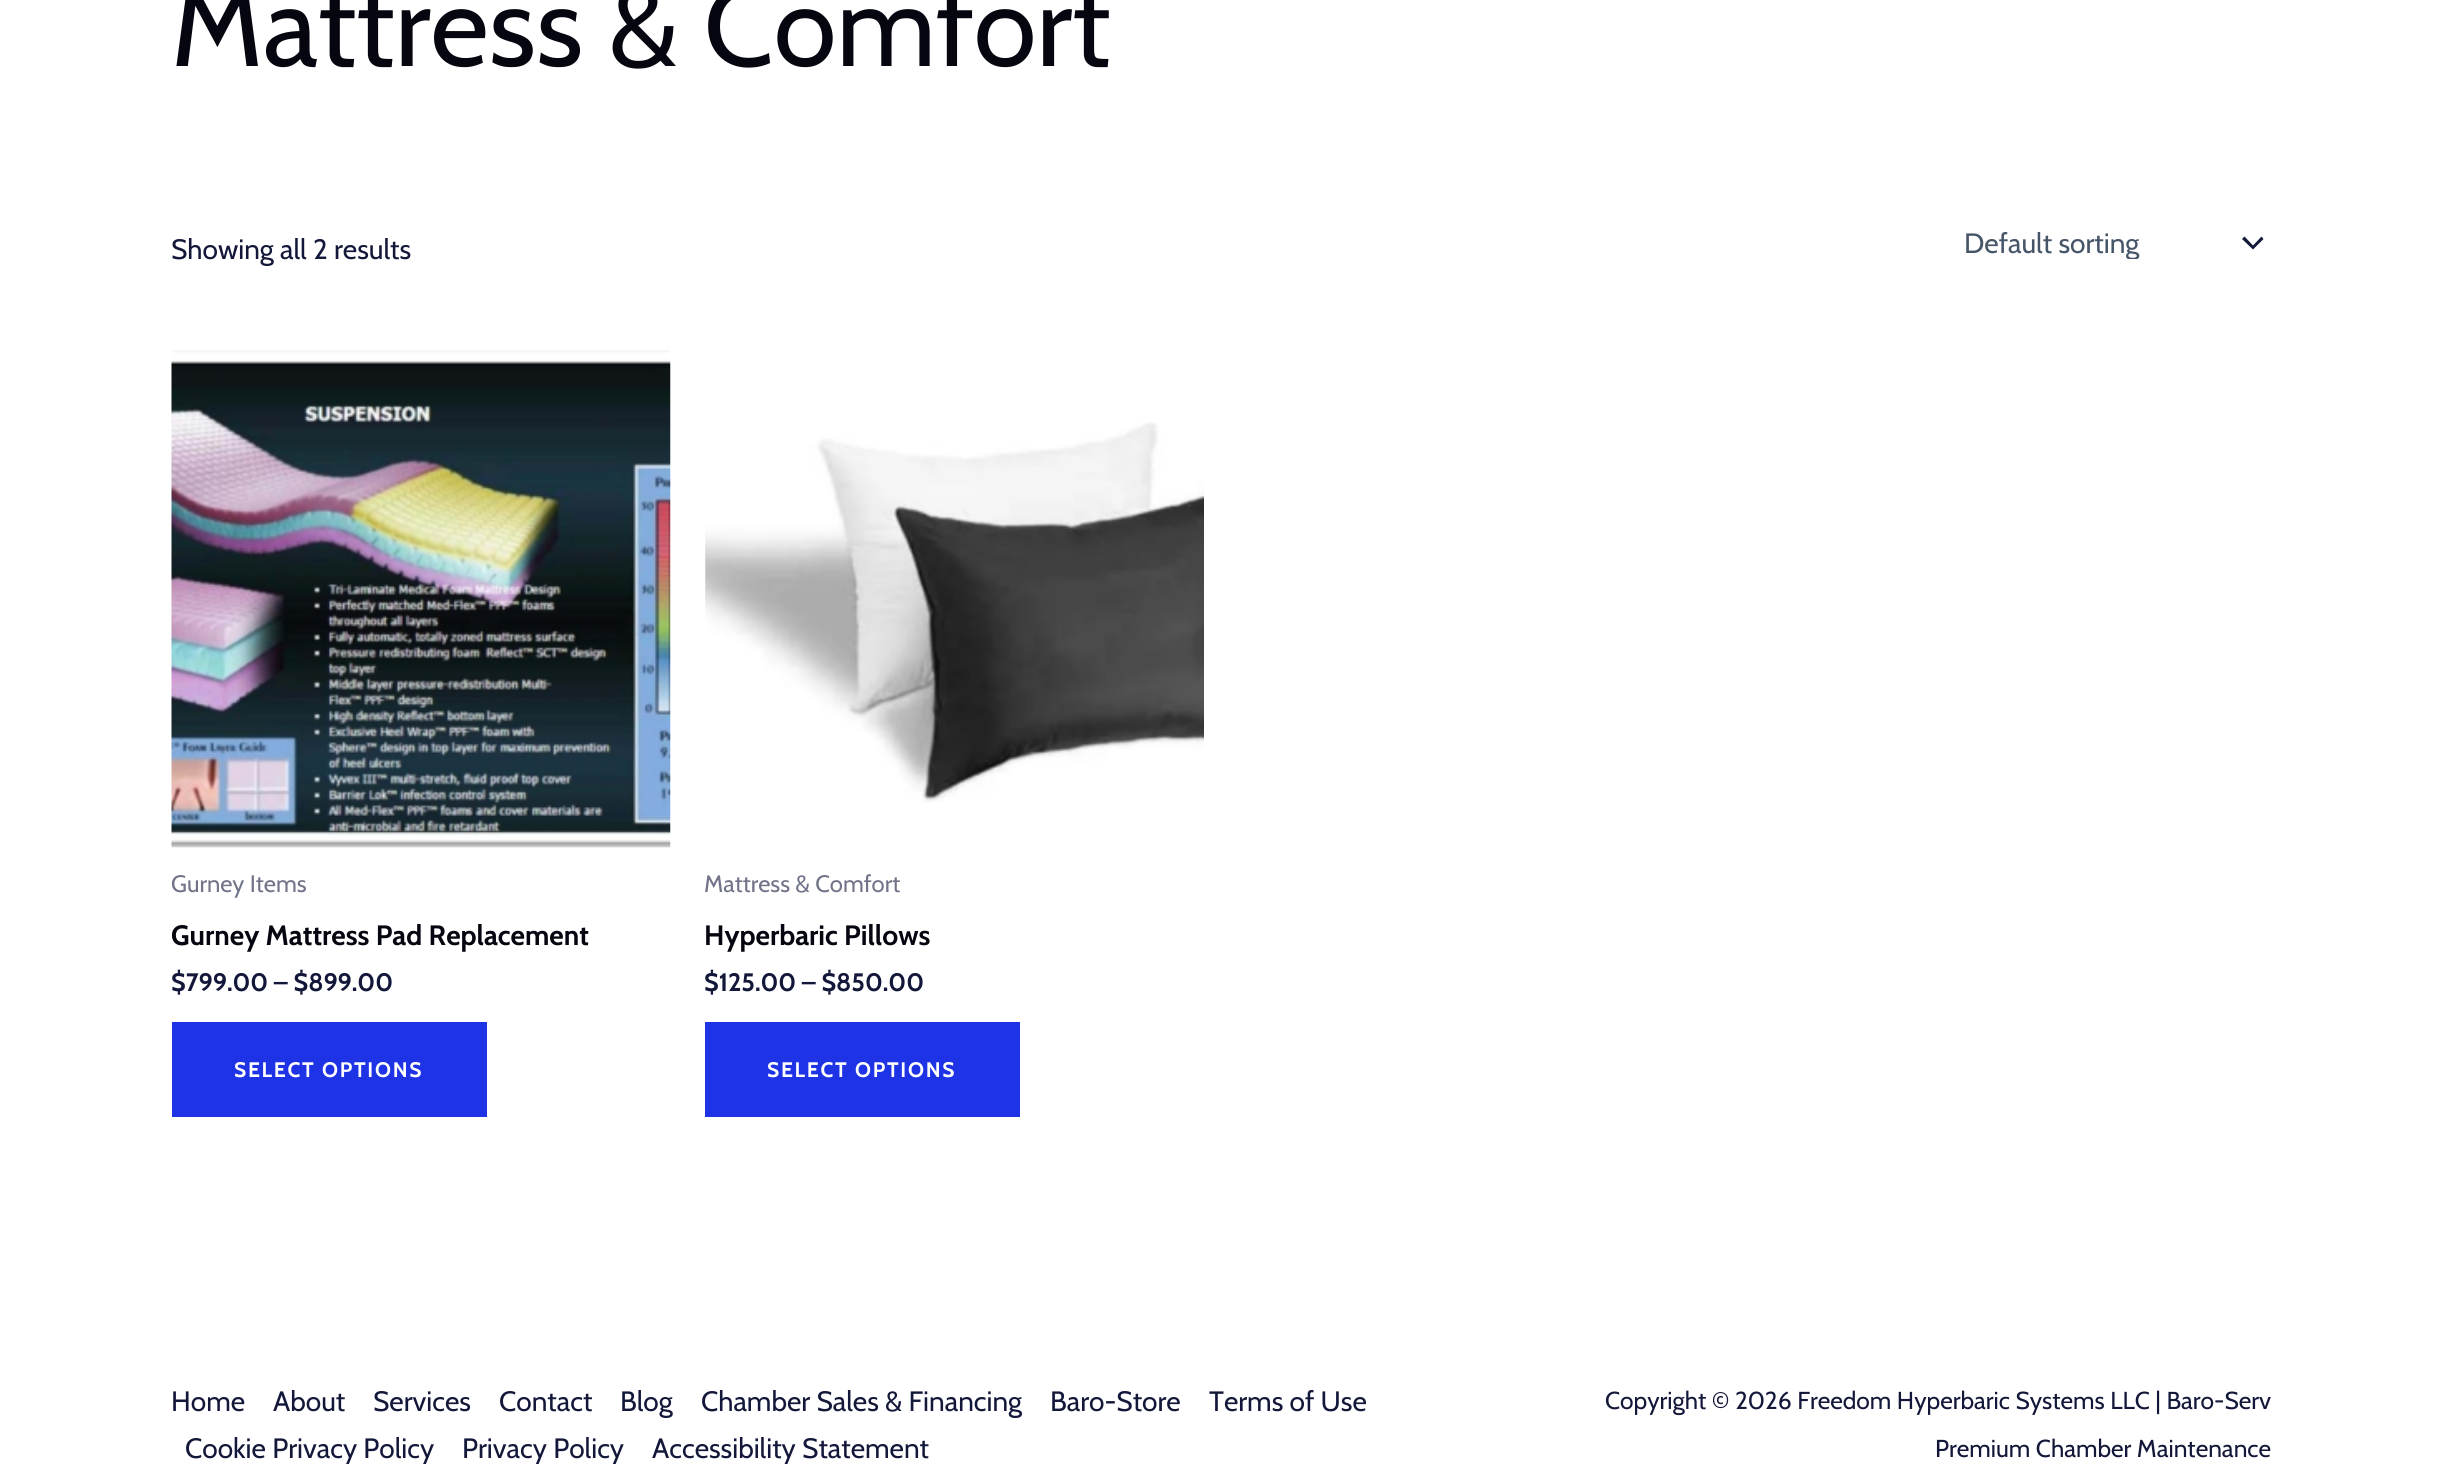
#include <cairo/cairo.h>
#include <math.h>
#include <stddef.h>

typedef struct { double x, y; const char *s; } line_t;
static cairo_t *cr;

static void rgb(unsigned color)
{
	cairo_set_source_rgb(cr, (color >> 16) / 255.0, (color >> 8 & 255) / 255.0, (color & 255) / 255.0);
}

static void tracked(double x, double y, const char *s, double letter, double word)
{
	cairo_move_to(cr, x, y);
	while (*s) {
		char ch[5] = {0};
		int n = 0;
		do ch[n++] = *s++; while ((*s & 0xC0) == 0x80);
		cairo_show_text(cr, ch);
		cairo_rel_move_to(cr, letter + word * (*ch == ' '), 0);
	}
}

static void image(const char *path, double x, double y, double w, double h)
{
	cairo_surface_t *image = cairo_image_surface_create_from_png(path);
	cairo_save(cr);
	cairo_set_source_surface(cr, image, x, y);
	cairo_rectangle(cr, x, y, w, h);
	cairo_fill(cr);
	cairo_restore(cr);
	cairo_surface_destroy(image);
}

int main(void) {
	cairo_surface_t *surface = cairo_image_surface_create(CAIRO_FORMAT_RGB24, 2441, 1464);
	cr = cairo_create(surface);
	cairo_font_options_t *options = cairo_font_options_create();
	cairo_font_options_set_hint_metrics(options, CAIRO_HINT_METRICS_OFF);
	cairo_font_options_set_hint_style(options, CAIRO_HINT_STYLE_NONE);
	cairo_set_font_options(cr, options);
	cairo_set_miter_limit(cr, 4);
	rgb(0xffffff);
	cairo_paint(cr);
	rgb(0x131739);
	cairo_new_path(cr);
	cairo_move_to(cr, 2242, 239);
	cairo_line_to(cr, 2253, 249.5);
	cairo_line_to(cr, 2263.5, 239);
	cairo_line_to(cr, 2261.5, 236.5);
	cairo_line_to(cr, 2253, 245.5);
	cairo_line_to(cr, 2244.5, 236.5);
	cairo_close_path(cr);
	cairo_fill(cr);
	image("img/1.png", 171, 350, 500, 498);
	rgb(0x1f33e6);
	cairo_rectangle(cr, 172, 1022, 315, 95);
	cairo_fill(cr);
	image("img/2.png", 705, 422, 499, 381);
	cairo_rectangle(cr, 705, 1022, 315, 95);
	cairo_fill(cr);
	cairo_select_font_face(cr, "Cabin", CAIRO_FONT_SLANT_NORMAL, CAIRO_FONT_WEIGHT_NORMAL);
	cairo_set_font_size(cr, 113.75);
	rgb(0x05060f);
	cairo_move_to(cr, 171, 66);
	cairo_show_text(cr, "Mattress & Comfort");
	cairo_set_font_size(cr, 28);
	rgb(0x131739);
	cairo_move_to(cr, 171, 259);
	cairo_show_text(cr, "Showing all 2 results");
	cairo_save(cr);
	cairo_rectangle(cr, 1965, 226, 293, 33);
	cairo_clip(cr);
	rgb(0x475569);
	cairo_move_to(cr, 1964, 253);
	cairo_show_text(cr, "Default sorting");
	cairo_restore(cr);
	cairo_set_font_size(cr, 23.75);
	rgb(0x717488);
	cairo_move_to(cr, 171, 892);
	cairo_show_text(cr, "Gurney Items");
	cairo_select_font_face(cr, "Cabin", CAIRO_FONT_SLANT_NORMAL, CAIRO_FONT_WEIGHT_BOLD);
	cairo_set_font_size(cr, 28);
	rgb(0x05060f);
	cairo_move_to(cr, 171, 945);
	cairo_show_text(cr, "Gurney Mattress Pad Replacement");
	cairo_set_font_size(cr, 25.25);
	rgb(0x131739);
	cairo_move_to(cr, 171, 991);
	cairo_show_text(cr, "$799.00 – $899.00");
	cairo_set_font_size(cr, 21);
	rgb(0xffffff);
	tracked(234, 1077, "SELECT OPTIONS", 1.75, 0);
	cairo_select_font_face(cr, "Cabin", CAIRO_FONT_SLANT_NORMAL, CAIRO_FONT_WEIGHT_NORMAL);
	cairo_set_font_size(cr, 23.75);
	rgb(0x717488);
	cairo_move_to(cr, 704, 892);
	cairo_show_text(cr, "Mattress & Comfort");
	cairo_select_font_face(cr, "Cabin", CAIRO_FONT_SLANT_NORMAL, CAIRO_FONT_WEIGHT_BOLD);
	cairo_set_font_size(cr, 28);
	rgb(0x05060f);
	cairo_move_to(cr, 704, 945);
	cairo_show_text(cr, "Hyperbaric Pillows");
	cairo_set_font_size(cr, 25.25);
	rgb(0x131739);
	cairo_move_to(cr, 704, 991);
	cairo_show_text(cr, "$125.00 – $850.00");
	cairo_set_font_size(cr, 21);
	rgb(0xffffff);
	tracked(767, 1077, "SELECT OPTIONS", 1.75, 0);
	cairo_select_font_face(cr, "Cabin", CAIRO_FONT_SLANT_NORMAL, CAIRO_FONT_WEIGHT_NORMAL);
	cairo_set_font_size(cr, 28);
	rgb(0x131739);
	{
		static const line_t items[] = {
			{171, 1411, "Home"},
			{273, 1411, "About"},
			{373, 1411, "Services"},
			{499, 1411, "Contact"},
			{620, 1411, "Blog"},
			{701, 1411, "Chamber Sales & Financing"},
			{1050, 1411, "Baro-Store"},
			{1209, 1411, "Terms of Use"},
			{185, 1458, "Cookie Privacy Policy"},
			{462, 1458, "Privacy Policy"},
			{652, 1458, "Accessibility Statement"},
		};
		for (size_t i = 0; i < sizeof items / sizeof *items; i++) {
			cairo_move_to(cr, items[i].x, items[i].y);
			cairo_show_text(cr, items[i].s);
		}
	}
	cairo_set_font_size(cr, 24.5);
	cairo_move_to(cr, 1605, 1409);
	cairo_show_text(cr, "Copyright © 2026 Freedom Hyperbaric Systems LLC | Baro-Serv");
	cairo_move_to(cr, 1935, 1457);
	cairo_show_text(cr, "Premium Chamber Maintenance");
	cairo_surface_write_to_png(surface, "page.png");
	cairo_font_options_destroy(options);
	cairo_destroy(cr);
	cairo_surface_destroy(surface);
	return 0;
}
